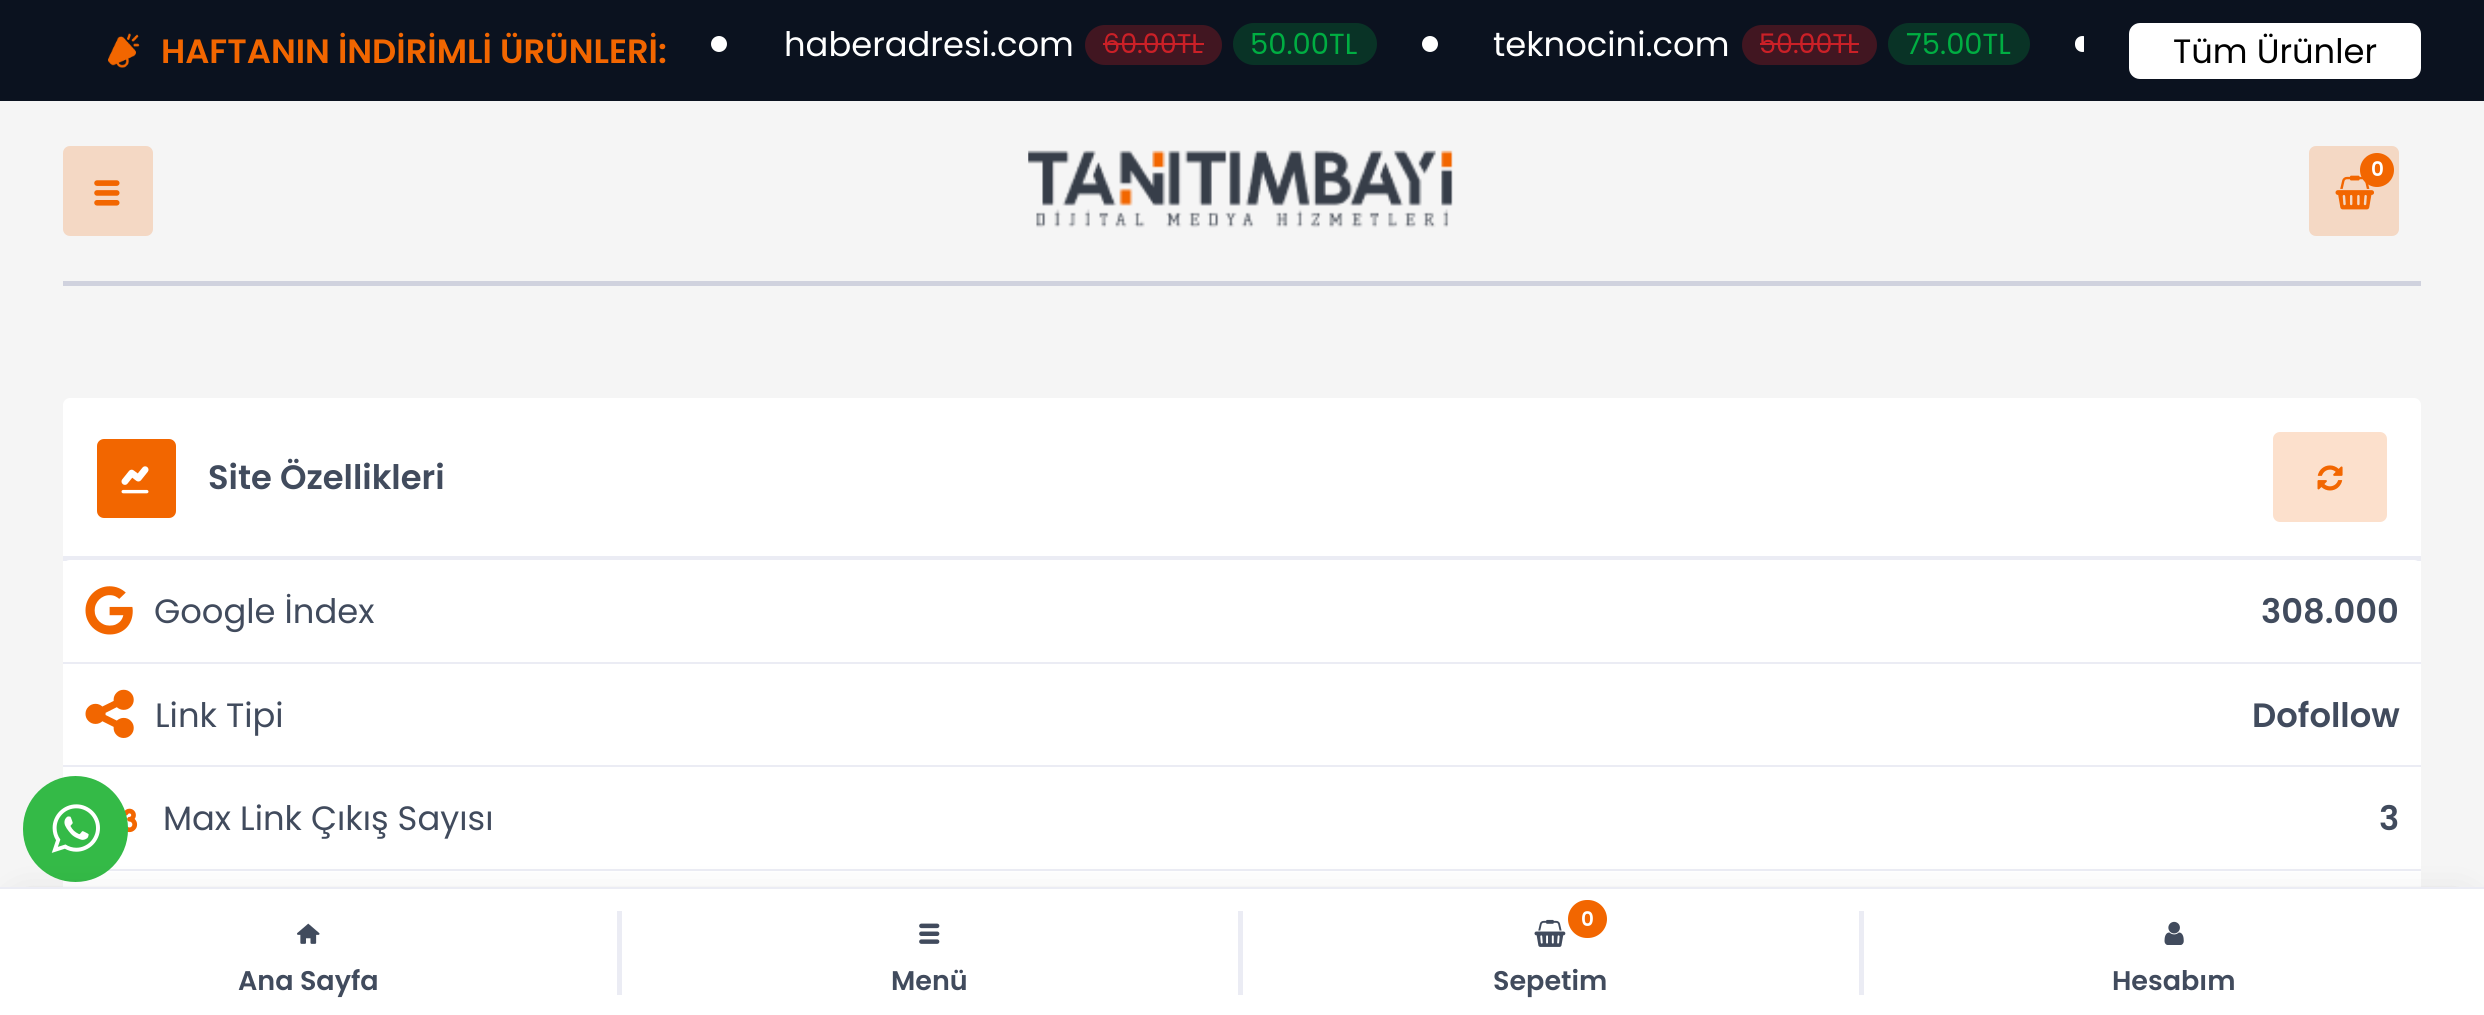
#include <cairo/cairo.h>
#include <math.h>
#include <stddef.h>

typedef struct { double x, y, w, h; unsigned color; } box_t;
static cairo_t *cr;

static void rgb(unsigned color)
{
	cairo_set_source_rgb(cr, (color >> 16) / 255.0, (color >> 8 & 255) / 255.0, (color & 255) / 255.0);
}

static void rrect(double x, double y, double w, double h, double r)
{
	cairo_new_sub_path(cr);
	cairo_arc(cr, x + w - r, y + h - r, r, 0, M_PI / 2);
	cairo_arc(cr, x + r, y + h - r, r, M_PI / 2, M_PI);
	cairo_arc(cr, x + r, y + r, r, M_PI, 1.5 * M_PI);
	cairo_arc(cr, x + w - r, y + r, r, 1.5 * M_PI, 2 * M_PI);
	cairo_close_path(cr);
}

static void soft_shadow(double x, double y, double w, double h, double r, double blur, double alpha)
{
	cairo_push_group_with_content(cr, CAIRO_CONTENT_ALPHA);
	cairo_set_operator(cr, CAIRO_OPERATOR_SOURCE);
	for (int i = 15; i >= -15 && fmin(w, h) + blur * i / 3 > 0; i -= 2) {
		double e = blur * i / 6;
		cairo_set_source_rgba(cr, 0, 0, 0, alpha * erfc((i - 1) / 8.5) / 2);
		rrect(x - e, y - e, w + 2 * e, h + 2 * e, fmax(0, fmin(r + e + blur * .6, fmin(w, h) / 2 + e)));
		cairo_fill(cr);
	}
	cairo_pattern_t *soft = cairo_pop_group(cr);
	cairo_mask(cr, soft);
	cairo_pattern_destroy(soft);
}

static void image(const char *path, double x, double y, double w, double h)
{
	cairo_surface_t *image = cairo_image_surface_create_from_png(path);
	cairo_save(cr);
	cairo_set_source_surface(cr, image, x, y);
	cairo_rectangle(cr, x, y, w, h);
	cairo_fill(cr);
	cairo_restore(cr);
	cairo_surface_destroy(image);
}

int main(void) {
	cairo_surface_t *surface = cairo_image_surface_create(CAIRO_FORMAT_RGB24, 2484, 1015);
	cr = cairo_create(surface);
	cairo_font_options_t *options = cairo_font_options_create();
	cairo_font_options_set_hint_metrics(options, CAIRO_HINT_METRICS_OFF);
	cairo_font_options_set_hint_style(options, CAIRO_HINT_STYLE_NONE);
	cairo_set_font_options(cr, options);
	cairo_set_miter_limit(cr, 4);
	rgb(0xf5f5f5);
	cairo_paint(cr);
	rgb(0x0b121f);
	cairo_rectangle(cr, 0, 0, 2484, 101);
	cairo_fill(cr);
	image("img/1.png", 108, 33, 32, 35);
	rgb(0xffffff);
	cairo_arc(cr, 719, 44, 8, 0, 2 * M_PI);
	cairo_fill(cr);
	rgb(0x411621);
	rrect(1085, 25, 137, 40, 20);
	cairo_fill(cr);
	rgb(0xcb2027);
	cairo_rectangle(cr, 1103, 43, 101, 2);
	cairo_fill(cr);
	rgb(0x093326);
	rrect(1233, 23, 144, 42, 21);
	cairo_fill(cr);
	rgb(0xffffff);
	cairo_arc(cr, 1430, 44, 8, 0, 2 * M_PI);
	cairo_fill(cr);
	rgb(0x411621);
	rrect(1742, 25, 135, 40, 20);
	cairo_fill(cr);
	rgb(0xcb2027);
	cairo_rectangle(cr, 1760, 43, 99, 2);
	cairo_fill(cr);
	rgb(0x093326);
	rrect(1888, 23, 142, 42, 21);
	cairo_fill(cr);
	cairo_save(cr);
	cairo_rectangle(cr, 711, 23, 1373, 56);
	cairo_clip(cr);
	rgb(0xffffff);
	rrect(2075, 36, 15, 16, 7.5);
	cairo_fill(cr);
	cairo_restore(cr);
	rgb(0xffffff);
	rrect(2129, 23, 292, 56, 11);
	cairo_fill(cr);
	rgb(0xd0d2de);
	cairo_rectangle(cr, 63, 281, 2358, 5);
	cairo_fill(cr);
	rgb(0xf4d8c4);
	rrect(63, 146, 90, 90, 7);
	cairo_fill(cr);
	image("img/2.png", 94, 180, 26, 26);
	image("img/3.png", 1028, 150, 425, 78);
	rrect(2309, 146, 90, 90, 7);
	cairo_fill(cr);
	image("img/4.png", 2335, 175, 39, 35);
	rgb(0xf26600);
	cairo_arc(cr, 2377, 170, 17, 0, 2 * M_PI);
	cairo_fill(cr);
	rgb(0xffffff);
	rrect(63, 398, 2358, 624, 7);
	cairo_fill(cr);
	rgb(0xebecf4);
	cairo_rectangle(cr, 63, 556, 2358, 5);
	cairo_fill(cr);
	rgb(0xffffff);
	rrect(63, 560, 2358, 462, 7);
	cairo_fill(cr);
	rgb(0xebecf4);
	cairo_rectangle(cr, 107, 869, 2314, 2);
	cairo_fill(cr);
	image("img/10.png", 124, 808, 14, 25);
	rgb(0x34ba47);
	rrect(23, 776, 105, 106, 52.5);
	cairo_fill(cr);
	image("img/5.png", 51, 804, 49, 49);
	rgb(0xf26600);
	rrect(97, 439, 79, 79, 7);
	cairo_fill(cr);
	image("img/6.png", 121, 466, 28, 28);
	rgb(0xfce0cc);
	rrect(2273, 432, 114, 90, 7);
	cairo_fill(cr);
	image("img/7.png", 2317, 465, 26, 26);
	rgb(0xebecf4);
	cairo_rectangle(cr, 63, 662, 2358, 2);
	cairo_fill(cr);
	image("img/8.png", 85, 586, 48, 49);
	cairo_rectangle(cr, 63, 765, 2358, 2);
	cairo_fill(cr);
	image("img/9.png", 85, 689, 49, 49);
	rgb(0x000000);
	soft_shadow(23, 909, 2439, 86, 0, 20, 0.25);
	{
		static const box_t items[] = {
			{0, 889, 2484, 126, 0xffffff},
			{0, 887, 2484, 2, 0xebecf4},
			{617, 911, 5, 84, 0xebecf4},
		};
		for (size_t i = 0; i < sizeof items / sizeof *items; i++) {
			rgb(items[i].color);
			cairo_rectangle(cr, items[i].x, items[i].y, items[i].w, items[i].h);
			cairo_fill(cr);
		}
	}
	image("img/11.png", 297, 923, 23, 21);
	cairo_rectangle(cr, 1238, 911, 5, 84);
	cairo_fill(cr);
	image("img/12.png", 919, 923, 21, 21);
	cairo_rectangle(cr, 1859, 911, 5, 84);
	cairo_fill(cr);
	image("img/13.png", 1534, 919, 32, 28);
	rgb(0xf26600);
	rrect(1568, 900, 39, 38, 19);
	cairo_fill(cr);
	image("img/14.png", 2164, 921, 20, 24);
	cairo_select_font_face(cr, "Poppins SemiBold", CAIRO_FONT_SLANT_NORMAL, CAIRO_FONT_WEIGHT_NORMAL);
	cairo_set_font_size(cr, 33.75);
	cairo_move_to(cr, 161, 63);
	cairo_show_text(cr, "HAFTANIN İNDİRİMLİ ÜRÜNLERİ:");
	cairo_select_font_face(cr, "Poppins", CAIRO_FONT_SLANT_NORMAL, CAIRO_FONT_WEIGHT_NORMAL);
	rgb(0xffffff);
	cairo_move_to(cr, 784, 56);
	cairo_show_text(cr, "haberadresi.com");
	cairo_set_font_size(cr, 27);
	rgb(0xcb2027);
	cairo_move_to(cr, 1103, 53);
	cairo_show_text(cr, "60.00TL");
	cairo_set_font_size(cr, 29);
	rgb(0x00ae42);
	cairo_move_to(cr, 1250, 54);
	cairo_show_text(cr, "50.00TL");
	cairo_set_font_size(cr, 33.75);
	rgb(0xffffff);
	cairo_move_to(cr, 1493, 56);
	cairo_show_text(cr, "teknocini.com");
	cairo_set_font_size(cr, 27);
	rgb(0xcb2027);
	cairo_move_to(cr, 1759, 53);
	cairo_show_text(cr, "50.00TL");
	cairo_set_font_size(cr, 29);
	rgb(0x00ae42);
	cairo_move_to(cr, 1906, 54);
	cairo_show_text(cr, "75.00TL");
	cairo_set_font_size(cr, 33.75);
	rgb(0x000000);
	cairo_move_to(cr, 2173, 63);
	cairo_show_text(cr, "Tüm Ürünler");
	cairo_select_font_face(cr, "Poppins SemiBold", CAIRO_FONT_SLANT_NORMAL, CAIRO_FONT_WEIGHT_NORMAL);
	cairo_set_font_size(cr, 20);
	rgb(0xffffff);
	cairo_move_to(cr, 2371, 176);
	cairo_show_text(cr, "0");
	cairo_set_font_size(cr, 33.75);
	rgb(0x414b5d);
	cairo_move_to(cr, 208, 489);
	cairo_show_text(cr, "Site Özellikleri");
	cairo_select_font_face(cr, "Poppins", CAIRO_FONT_SLANT_NORMAL, CAIRO_FONT_WEIGHT_NORMAL);
	cairo_move_to(cr, 154, 623);
	cairo_show_text(cr, "Google İndex");
	cairo_select_font_face(cr, "Poppins SemiBold", CAIRO_FONT_SLANT_NORMAL, CAIRO_FONT_WEIGHT_NORMAL);
	cairo_move_to(cr, 2261, 623);
	cairo_show_text(cr, "308.000");
	cairo_select_font_face(cr, "Poppins", CAIRO_FONT_SLANT_NORMAL, CAIRO_FONT_WEIGHT_NORMAL);
	cairo_move_to(cr, 155, 727);
	cairo_show_text(cr, "Link Tipi");
	cairo_select_font_face(cr, "Poppins SemiBold", CAIRO_FONT_SLANT_NORMAL, CAIRO_FONT_WEIGHT_NORMAL);
	cairo_move_to(cr, 2252, 727);
	cairo_show_text(cr, "Dofollow");
	cairo_select_font_face(cr, "Poppins", CAIRO_FONT_SLANT_NORMAL, CAIRO_FONT_WEIGHT_NORMAL);
	cairo_move_to(cr, 163, 830);
	cairo_show_text(cr, "Max Link Çıkış Sayısı");
	cairo_select_font_face(cr, "Poppins SemiBold", CAIRO_FONT_SLANT_NORMAL, CAIRO_FONT_WEIGHT_NORMAL);
	cairo_move_to(cr, 2379, 830);
	cairo_show_text(cr, "3");
	cairo_set_font_size(cr, 27);
	cairo_move_to(cr, 238, 990);
	cairo_show_text(cr, "Ana Sayfa");
	cairo_move_to(cr, 891, 990);
	cairo_show_text(cr, "Menü");
	cairo_set_font_size(cr, 20);
	rgb(0xffffff);
	cairo_move_to(cr, 1581, 926);
	cairo_show_text(cr, "0");
	cairo_set_font_size(cr, 27);
	rgb(0x414b5d);
	cairo_move_to(cr, 1493, 990);
	cairo_show_text(cr, "Sepetim");
	cairo_move_to(cr, 2112, 990);
	cairo_show_text(cr, "Hesabım");
	cairo_surface_write_to_png(surface, "page.png");
	cairo_font_options_destroy(options);
	cairo_destroy(cr);
	cairo_surface_destroy(surface);
	return 0;
}
